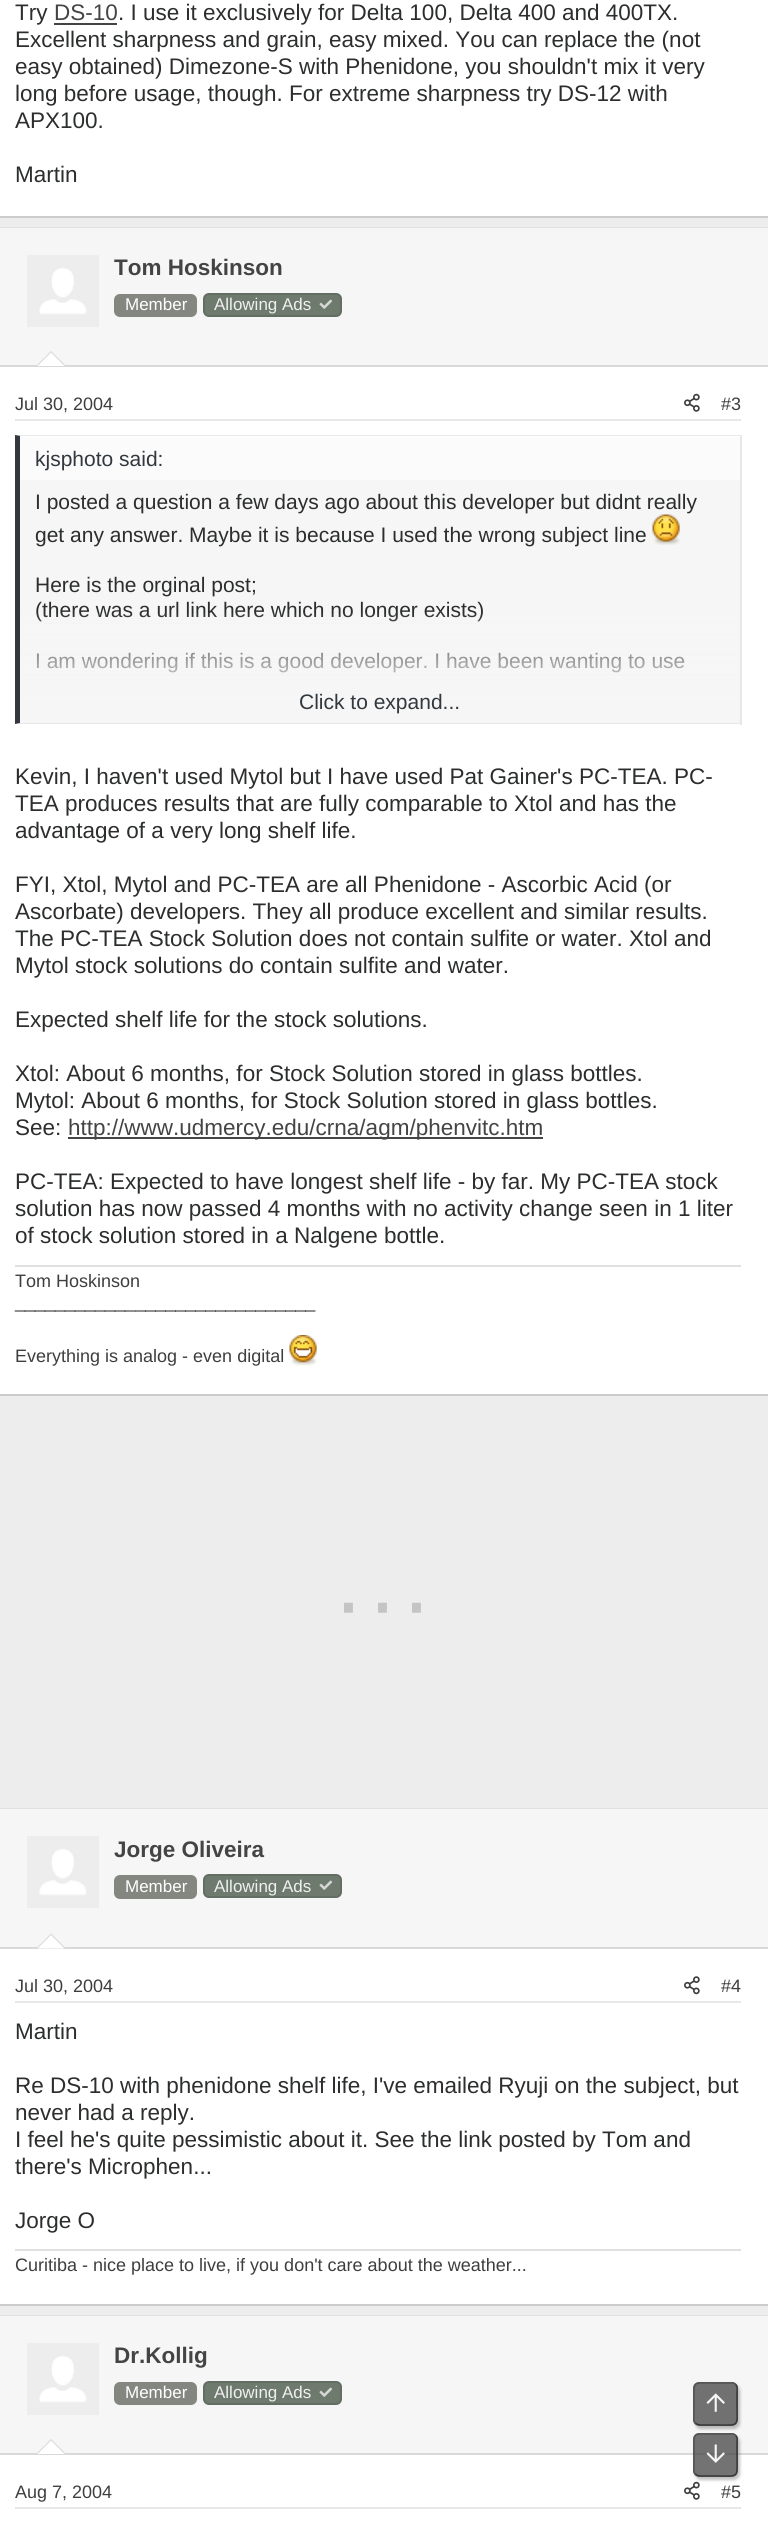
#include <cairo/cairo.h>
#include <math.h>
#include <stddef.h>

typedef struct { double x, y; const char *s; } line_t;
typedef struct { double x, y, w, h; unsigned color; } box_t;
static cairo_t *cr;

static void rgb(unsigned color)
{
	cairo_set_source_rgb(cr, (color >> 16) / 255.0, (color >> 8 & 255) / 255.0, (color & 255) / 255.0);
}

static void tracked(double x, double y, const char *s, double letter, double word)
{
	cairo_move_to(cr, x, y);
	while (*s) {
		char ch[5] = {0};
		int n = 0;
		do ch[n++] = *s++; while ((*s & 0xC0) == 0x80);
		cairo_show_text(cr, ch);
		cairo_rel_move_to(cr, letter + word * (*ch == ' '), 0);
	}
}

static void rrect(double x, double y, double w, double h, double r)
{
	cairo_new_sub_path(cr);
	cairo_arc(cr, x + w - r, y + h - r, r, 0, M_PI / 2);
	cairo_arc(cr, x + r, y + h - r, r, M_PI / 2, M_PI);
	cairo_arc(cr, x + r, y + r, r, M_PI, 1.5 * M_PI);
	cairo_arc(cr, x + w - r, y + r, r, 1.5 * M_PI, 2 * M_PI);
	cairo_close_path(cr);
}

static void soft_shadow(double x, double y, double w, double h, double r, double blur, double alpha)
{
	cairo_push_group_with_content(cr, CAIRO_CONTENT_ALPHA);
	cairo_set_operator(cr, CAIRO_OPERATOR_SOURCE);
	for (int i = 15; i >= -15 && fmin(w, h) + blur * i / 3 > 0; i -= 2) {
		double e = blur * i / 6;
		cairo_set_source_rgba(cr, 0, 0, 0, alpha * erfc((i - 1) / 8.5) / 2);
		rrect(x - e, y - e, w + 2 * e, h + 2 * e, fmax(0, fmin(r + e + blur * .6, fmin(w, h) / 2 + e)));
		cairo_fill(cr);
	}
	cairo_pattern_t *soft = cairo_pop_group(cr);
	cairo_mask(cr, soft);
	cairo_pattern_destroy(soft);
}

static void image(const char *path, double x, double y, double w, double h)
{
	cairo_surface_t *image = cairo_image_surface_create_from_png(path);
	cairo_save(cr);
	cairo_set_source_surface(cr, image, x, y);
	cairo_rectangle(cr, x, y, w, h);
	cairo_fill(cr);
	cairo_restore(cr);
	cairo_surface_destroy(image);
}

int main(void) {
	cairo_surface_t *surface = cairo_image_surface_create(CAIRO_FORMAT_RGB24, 768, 2521);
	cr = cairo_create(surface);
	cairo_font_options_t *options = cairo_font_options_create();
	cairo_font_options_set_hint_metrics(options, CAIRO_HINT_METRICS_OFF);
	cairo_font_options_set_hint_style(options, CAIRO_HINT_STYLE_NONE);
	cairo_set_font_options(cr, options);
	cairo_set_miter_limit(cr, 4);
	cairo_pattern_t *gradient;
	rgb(0xededed);
	cairo_paint(cr);
	{
		static const box_t items[] = {
			{0, 0, 768, 216, 0xffffff},
			{0, 216, 768, 2, 0xcccccc},
			{54, 23, 63, 2, 0x444444},
			{0, 367, 768, 1027, 0xffffff},
			{0, 227, 768, 1, 0xe0e0e0},
			{0, 1394, 768, 2, 0xcccccc},
			{0, 228, 768, 137, 0xf6f6f6},
			{0, 365, 768, 2, 0xd9d9d9},
		};
		for (size_t i = 0; i < sizeof items / sizeof *items; i++) {
			rgb(items[i].color);
			cairo_rectangle(cr, items[i].x, items[i].y, items[i].w, items[i].h);
			cairo_fill(cr);
		}
	}
	image("img/1.png", 27, 255, 72, 72);
	rgb(0x848680);
	rrect(114, 294, 83, 23, 6);
	cairo_fill(cr);
	rgb(0x6e7a6e);
	rrect(203, 293, 139, 24, 6);
	cairo_fill(cr);
	rrect(204, 294, 137, 22, 5);
	cairo_set_source_rgba(cr, 0, 0, 0, 0.1);
	cairo_stroke(cr);
	image("img/2.png", 319, 299, 14, 10);
	rgb(0xd9d9d9);
	cairo_new_path(cr);
	cairo_move_to(cr, 66, 366);
	cairo_line_to(cr, 36, 366);
	cairo_line_to(cr, 51, 351);
	cairo_close_path(cr);
	cairo_fill(cr);
	rgb(0xffffff);
	cairo_new_path(cr);
	cairo_move_to(cr, 64.5, 366);
	cairo_line_to(cr, 37.5, 366);
	cairo_line_to(cr, 51, 352.5);
	cairo_close_path(cr);
	cairo_fill(cr);
	rgb(0xe8e8e8);
	cairo_rectangle(cr, 15, 419, 726, 2);
	cairo_fill(cr);
	image("img/3.png", 684, 393, 16, 19);
	rgb(0xf6f6f6);
	cairo_rectangle(cr, 20, 480, 720, 220);
	cairo_fill(cr);
	rgb(0xe8e8e8);
	cairo_new_path(cr);
	cairo_move_to(cr, 15, 435);
	cairo_line_to(cr, 741, 435);
	cairo_line_to(cr, 740, 436);
	cairo_line_to(cr, 20, 436);
	cairo_close_path(cr);
	cairo_fill(cr);
	cairo_rectangle(cr, 740, 435, 2, 290);
	cairo_fill(cr);
	cairo_new_path(cr);
	cairo_move_to(cr, 741, 724);
	cairo_line_to(cr, 15, 724);
	cairo_line_to(cr, 20, 723);
	cairo_line_to(cr, 740, 723);
	cairo_close_path(cr);
	cairo_fill(cr);
	rgb(0x32383d);
	cairo_new_path(cr);
	cairo_move_to(cr, 15, 724);
	cairo_line_to(cr, 15, 435);
	cairo_line_to(cr, 20, 436);
	cairo_line_to(cr, 20, 723);
	cairo_close_path(cr);
	cairo_fill(cr);
	rgb(0xfbfbfb);
	cairo_rectangle(cr, 20, 437, 720, 43);
	cairo_fill(cr);
	image("img/4.png", 652, 514, 28, 31);
	rgb(0x444444);
	cairo_rectangle(cr, 68, 1137, 475, 2);
	cairo_fill(cr);
	rgb(0xe0e0e0);
	cairo_rectangle(cr, 15, 1265, 726, 2);
	cairo_fill(cr);
	image("img/5.png", 289, 1335, 28, 31);
	{
		static const box_t items[] = {
			{0, 1949, 768, 355, 0xffffff},
			{0, 1808, 768, 1, 0xe0e0e0},
			{0, 2304, 768, 2, 0xcccccc},
			{0, 1809, 768, 138, 0xf6f6f6},
			{0, 1947, 768, 2, 0xd9d9d9},
		};
		for (size_t i = 0; i < sizeof items / sizeof *items; i++) {
			rgb(items[i].color);
			cairo_rectangle(cr, items[i].x, items[i].y, items[i].w, items[i].h);
			cairo_fill(cr);
		}
	}
	image("img/1.png", 27, 1836, 72, 72);
	rgb(0x848680);
	rrect(114, 1875, 83, 24, 6);
	cairo_fill(cr);
	rgb(0x6e7a6e);
	rrect(203, 1874, 139, 24, 6);
	cairo_fill(cr);
	rrect(204, 1875, 137, 22, 5);
	cairo_set_source_rgba(cr, 0, 0, 0, 0.1);
	cairo_stroke(cr);
	image("img/2.png", 319, 1880, 14, 10);
	rgb(0xd9d9d9);
	cairo_new_path(cr);
	cairo_move_to(cr, 66, 1948.5);
	cairo_line_to(cr, 36, 1948.5);
	cairo_line_to(cr, 51, 1933.5);
	cairo_close_path(cr);
	cairo_fill(cr);
	rgb(0xffffff);
	cairo_new_path(cr);
	cairo_move_to(cr, 64.5, 1948.5);
	cairo_line_to(cr, 37.5, 1948.5);
	cairo_line_to(cr, 51, 1935);
	cairo_close_path(cr);
	cairo_fill(cr);
	rgb(0xe8e8e8);
	cairo_rectangle(cr, 15, 2001, 726, 2);
	cairo_fill(cr);
	image("img/6.png", 684, 1976, 16, 19);
	{
		static const box_t items[] = {
			{15, 2249, 726, 2, 0xe0e0e0},
			{0, 2455, 768, 66, 0xffffff},
			{0, 2315, 768, 1, 0xe0e0e0},
			{0, 2316, 768, 137, 0xf6f6f6},
			{0, 2453, 768, 2, 0xd9d9d9},
		};
		for (size_t i = 0; i < sizeof items / sizeof *items; i++) {
			rgb(items[i].color);
			cairo_rectangle(cr, items[i].x, items[i].y, items[i].w, items[i].h);
			cairo_fill(cr);
		}
	}
	image("img/1.png", 27, 2343, 72, 72);
	rgb(0x848680);
	rrect(114, 2382, 83, 23, 6);
	cairo_fill(cr);
	rgb(0x6e7a6e);
	rrect(203, 2381, 139, 24, 6);
	cairo_fill(cr);
	rrect(204, 2382, 137, 22, 5);
	cairo_set_source_rgba(cr, 0, 0, 0, 0.1);
	cairo_stroke(cr);
	image("img/2.png", 319, 2387, 14, 10);
	rgb(0xd9d9d9);
	cairo_new_path(cr);
	cairo_move_to(cr, 66, 2454);
	cairo_line_to(cr, 36, 2454);
	cairo_line_to(cr, 51, 2439);
	cairo_close_path(cr);
	cairo_fill(cr);
	rgb(0xffffff);
	cairo_new_path(cr);
	cairo_move_to(cr, 64.5, 2454);
	cairo_line_to(cr, 37.5, 2454);
	cairo_line_to(cr, 51, 2440.5);
	cairo_close_path(cr);
	cairo_fill(cr);
	rgb(0xe8e8e8);
	cairo_rectangle(cr, 15, 2507, 726, 2);
	cairo_fill(cr);
	image("img/3.png", 684, 2481, 16, 19);
	cairo_save(cr);
	cairo_set_fill_rule(cr, CAIRO_FILL_RULE_EVEN_ODD);
	cairo_new_path(cr);
	cairo_move_to(cr, 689, 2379);
	cairo_line_to(cr, 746, 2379);
	cairo_line_to(cr, 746, 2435);
	cairo_line_to(cr, 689, 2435);
	cairo_close_path(cr);
	cairo_move_to(cr, 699, 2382);
	cairo_line_to(cr, 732, 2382);
	cairo_curve_to(cr, 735.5, 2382, 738, 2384.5, 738, 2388);
	cairo_line_to(cr, 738, 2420);
	cairo_curve_to(cr, 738, 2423.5, 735.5, 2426, 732, 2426);
	cairo_line_to(cr, 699, 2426);
	cairo_curve_to(cr, 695.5, 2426, 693, 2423.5, 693, 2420);
	cairo_line_to(cr, 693, 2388);
	cairo_curve_to(cr, 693, 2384.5, 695.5, 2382, 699, 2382);
	cairo_close_path(cr);
	cairo_clip(cr);
	rgb(0x000000);
	soft_shadow(695, 2385, 45, 44, 6, 1.5, 0.25);
	cairo_restore(cr);
	cairo_set_source_rgba(cr, 0.267, 0.267, 0.267, 0.75);
	rrect(693, 2382, 45, 44, 6);
	cairo_fill(cr);
	cairo_new_path(cr);
	cairo_move_to(cr, 735.5, 2384.5);
	cairo_curve_to(cr, 738, 2386.5, 737, 2390.5, 737, 2393);
	cairo_line_to(cr, 737, 2404);
	cairo_curve_to(cr, 737, 2428, 740, 2425, 715.5, 2425);
	cairo_line_to(cr, 704.5, 2425);
	cairo_curve_to(cr, 701.5, 2425, 697.5, 2425.5, 695.5, 2423);
	rgb(0x373737);
	cairo_set_line_width(cr, 1.5);
	cairo_stroke(cr);
	cairo_new_path(cr);
	cairo_move_to(cr, 695.5, 2423);
	cairo_curve_to(cr, 693, 2421, 694, 2417, 694, 2414);
	cairo_line_to(cr, 694, 2404);
	cairo_curve_to(cr, 694, 2379.5, 691, 2383, 715.5, 2383);
	cairo_line_to(cr, 726.5, 2383);
	cairo_curve_to(cr, 729.5, 2383, 733.5, 2382, 735.5, 2384.5);
	rgb(0x515151);
	cairo_stroke(cr);
	image("img/7.png", 706, 2393, 19, 19);
	cairo_save(cr);
	cairo_set_fill_rule(cr, CAIRO_FILL_RULE_EVEN_ODD);
	cairo_new_path(cr);
	cairo_move_to(cr, 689, 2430);
	cairo_line_to(cr, 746, 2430);
	cairo_line_to(cr, 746, 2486);
	cairo_line_to(cr, 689, 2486);
	cairo_close_path(cr);
	cairo_move_to(cr, 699, 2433);
	cairo_line_to(cr, 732, 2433);
	cairo_curve_to(cr, 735.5, 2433, 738, 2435.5, 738, 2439);
	cairo_line_to(cr, 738, 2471);
	cairo_curve_to(cr, 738, 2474.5, 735.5, 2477, 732, 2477);
	cairo_line_to(cr, 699, 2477);
	cairo_curve_to(cr, 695.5, 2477, 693, 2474.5, 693, 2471);
	cairo_line_to(cr, 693, 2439);
	cairo_curve_to(cr, 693, 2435.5, 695.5, 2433, 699, 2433);
	cairo_close_path(cr);
	cairo_clip(cr);
	rgb(0x000000);
	soft_shadow(695, 2436, 45, 44, 6, 1.5, 0.25);
	cairo_restore(cr);
	cairo_set_source_rgba(cr, 0.267, 0.267, 0.267, 0.75);
	rrect(693, 2433, 45, 44, 6);
	cairo_fill(cr);
	cairo_new_path(cr);
	cairo_move_to(cr, 735.5, 2435.5);
	cairo_curve_to(cr, 738, 2437.5, 737, 2441.5, 737, 2444);
	cairo_line_to(cr, 737, 2455);
	cairo_curve_to(cr, 737, 2479, 740, 2476, 715.5, 2476);
	cairo_line_to(cr, 704.5, 2476);
	cairo_curve_to(cr, 701.5, 2476, 697.5, 2476.5, 695.5, 2474);
	rgb(0x373737);
	cairo_stroke(cr);
	cairo_new_path(cr);
	cairo_move_to(cr, 695.5, 2474);
	cairo_curve_to(cr, 693, 2472, 694, 2468, 694, 2465);
	cairo_line_to(cr, 694, 2455);
	cairo_curve_to(cr, 694, 2430.5, 691, 2434, 715.5, 2434);
	cairo_line_to(cr, 726.5, 2434);
	cairo_curve_to(cr, 729.5, 2434, 733.5, 2433, 735.5, 2435.5);
	rgb(0x515151);
	cairo_stroke(cr);
	image("img/8.png", 706, 2444, 19, 19);
	cairo_select_font_face(cr, "Liberation Sans", CAIRO_FONT_SLANT_NORMAL, CAIRO_FONT_WEIGHT_NORMAL);
	cairo_set_font_size(cr, 22.5);
	rgb(0x2c2d2d);
	cairo_move_to(cr, 15, 20);
	cairo_show_text(cr, "Try");
	rgb(0x444444);
	cairo_move_to(cr, 54, 20);
	cairo_show_text(cr, "DS-10");
	rgb(0x2c2d2d);
	{
		static const line_t items[] = {
			{118, 20, ". I use it exclusively for Delta 100, Delta 400 and 400TX."},
			{15, 47, "Excellent sharpness and grain, easy mixed. You can replace the (not"},
			{15, 74, "easy obtained) Dimezone-S with Phenidone, you shouldn't mix it very"},
			{15, 101, "long before usage, though. For extreme sharpness try DS-12 with"},
			{15, 128, "APX100."},
			{15, 182, "Martin"},
		};
		for (size_t i = 0; i < sizeof items / sizeof *items; i++) {
			cairo_move_to(cr, items[i].x, items[i].y);
			cairo_show_text(cr, items[i].s);
		}
	}
	cairo_select_font_face(cr, "Liberation Sans", CAIRO_FONT_SLANT_NORMAL, CAIRO_FONT_WEIGHT_BOLD);
	rgb(0x444444);
	cairo_move_to(cr, 114, 275);
	cairo_show_text(cr, "Tom Hoskinson");
	cairo_select_font_face(cr, "Liberation Sans", CAIRO_FONT_SLANT_NORMAL, CAIRO_FONT_WEIGHT_NORMAL);
	cairo_set_font_size(cr, 17);
	rgb(0xffffff);
	cairo_move_to(cr, 125, 310);
	cairo_show_text(cr, "Member");
	rgb(0xf0f0f0);
	cairo_move_to(cr, 214, 310);
	cairo_show_text(cr, "Allowing Ads");
	cairo_set_font_size(cr, 18);
	rgb(0x3e3e3e);
	cairo_move_to(cr, 15, 410);
	cairo_show_text(cr, "Jul 30, 2004");
	cairo_move_to(cr, 721, 410);
	cairo_show_text(cr, "#3");
	cairo_set_font_size(cr, 21);
	rgb(0x32383d);
	cairo_move_to(cr, 35, 466);
	cairo_show_text(cr, "kjsphoto said:");
	rgb(0x2c2d2d);
	{
		static const line_t items[] = {
			{35, 509, "I posted a question a few days ago about this developer but didnt really"},
			{35, 542, "get any answer. Maybe it is because I used the wrong subject line"},
			{35, 592, "Here is the orginal post;"},
			{35, 617, "(there was a url link here which no longer exists)"},
			{35, 668, "I am wondering if this is a good developer. I have been wanting to use"},
		};
		for (size_t i = 0; i < sizeof items / sizeof *items; i++) {
			cairo_move_to(cr, items[i].x, items[i].y);
			cairo_show_text(cr, items[i].s);
		}
	}
	gradient = cairo_pattern_create_linear(380, 611, 380, 723);
	cairo_pattern_add_color_stop_rgba(gradient, 0, 0.965, 0.965, 0.965, 0);
	cairo_pattern_add_color_stop_rgba(gradient, 0.8, 0.965, 0.965, 0.965, 1);
	cairo_set_source(cr, gradient);
	cairo_pattern_destroy(gradient);
	cairo_rectangle(cr, 20, 613, 720, 110);
	cairo_fill(cr);
	rgb(0x32383d);
	cairo_move_to(cr, 299, 709);
	cairo_show_text(cr, "Click to expand...");
	cairo_set_font_size(cr, 22.5);
	rgb(0x2c2d2d);
	{
		static const line_t items[] = {
			{15, 784, "Kevin, I haven't used Mytol but I have used Pat Gainer's PC-TEA. PC-"},
			{15, 811, "TEA produces results that are fully comparable to Xtol and has the"},
			{15, 838, "advantage of a very long shelf life."},
			{15, 892, "FYI, Xtol, Mytol and PC-TEA are all Phenidone - Ascorbic Acid (or"},
			{15, 919, "Ascorbate) developers. They all produce excellent and similar results."},
			{15, 946, "The PC-TEA Stock Solution does not contain sulfite or water. Xtol and"},
			{15, 973, "Mytol stock solutions do contain sulfite and water."},
			{15, 1027, "Expected shelf life for the stock solutions."},
			{15, 1081, "Xtol: About 6 months, for Stock Solution stored in glass bottles."},
			{15, 1108, "Mytol: About 6 months, for Stock Solution stored in glass bottles."},
			{15, 1135, "See:"},
		};
		for (size_t i = 0; i < sizeof items / sizeof *items; i++) {
			cairo_move_to(cr, items[i].x, items[i].y);
			cairo_show_text(cr, items[i].s);
		}
	}
	rgb(0x444444);
	cairo_move_to(cr, 68, 1135);
	cairo_show_text(cr, "http://www.udmercy.edu/crna/agm/phenvitc.htm");
	rgb(0x2c2d2d);
	{
		static const line_t items[] = {
			{15, 1189, "PC-TEA: Expected to have longest shelf life - by far. My PC-TEA stock"},
			{15, 1216, "solution has now passed 4 months with no activity change seen in 1 liter"},
			{15, 1243, "of stock solution stored in a Nalgene bottle."},
		};
		for (size_t i = 0; i < sizeof items / sizeof *items; i++) {
			cairo_move_to(cr, items[i].x, items[i].y);
			cairo_show_text(cr, items[i].s);
		}
	}
	cairo_set_font_size(cr, 18);
	rgb(0x3e3e3e);
	{
		static const line_t items[] = {
			{15, 1287, "Tom Hoskinson"},
			{15, 1308, "______________________________"},
			{15, 1362, "Everything is analog - even digital"},
		};
		for (size_t i = 0; i < sizeof items / sizeof *items; i++) {
			cairo_move_to(cr, items[i].x, items[i].y);
			cairo_show_text(cr, items[i].s);
		}
	}
	cairo_set_font_size(cr, 93);
	rgb(0xc4c4c4);
	tracked(333, 1633, "···", 3, 0);
	cairo_select_font_face(cr, "Liberation Sans", CAIRO_FONT_SLANT_NORMAL, CAIRO_FONT_WEIGHT_BOLD);
	cairo_set_font_size(cr, 22.5);
	rgb(0x444444);
	cairo_move_to(cr, 114, 1857);
	cairo_show_text(cr, "Jorge Oliveira");
	cairo_select_font_face(cr, "Liberation Sans", CAIRO_FONT_SLANT_NORMAL, CAIRO_FONT_WEIGHT_NORMAL);
	cairo_set_font_size(cr, 17);
	rgb(0xffffff);
	cairo_move_to(cr, 125, 1892);
	cairo_show_text(cr, "Member");
	rgb(0xf0f0f0);
	cairo_move_to(cr, 214, 1892);
	cairo_show_text(cr, "Allowing Ads");
	cairo_set_font_size(cr, 18);
	rgb(0x3e3e3e);
	cairo_move_to(cr, 15, 1992);
	cairo_show_text(cr, "Jul 30, 2004");
	cairo_move_to(cr, 721, 1992);
	cairo_show_text(cr, "#4");
	cairo_set_font_size(cr, 22.5);
	rgb(0x2c2d2d);
	{
		static const line_t items[] = {
			{15, 2039, "Martin"},
			{15, 2093, "Re DS-10 with phenidone shelf life, I've emailed Ryuji on the subject, but"},
			{15, 2120, "never had a reply."},
			{15, 2147, "I feel he's quite pessimistic about it. See the link posted by Tom and"},
			{15, 2174, "there's Microphen..."},
			{15, 2228, "Jorge O"},
		};
		for (size_t i = 0; i < sizeof items / sizeof *items; i++) {
			cairo_move_to(cr, items[i].x, items[i].y);
			cairo_show_text(cr, items[i].s);
		}
	}
	cairo_set_font_size(cr, 18);
	rgb(0x3e3e3e);
	cairo_move_to(cr, 15, 2271);
	cairo_show_text(cr, "Curitiba - nice place to live, if you don't care about the weather...");
	cairo_select_font_face(cr, "Liberation Sans", CAIRO_FONT_SLANT_NORMAL, CAIRO_FONT_WEIGHT_BOLD);
	cairo_set_font_size(cr, 22.5);
	rgb(0x444444);
	cairo_move_to(cr, 114, 2363);
	cairo_show_text(cr, "Dr.Kollig");
	cairo_select_font_face(cr, "Liberation Sans", CAIRO_FONT_SLANT_NORMAL, CAIRO_FONT_WEIGHT_NORMAL);
	cairo_set_font_size(cr, 17);
	rgb(0xffffff);
	cairo_move_to(cr, 125, 2398);
	cairo_show_text(cr, "Member");
	rgb(0xf0f0f0);
	cairo_move_to(cr, 214, 2398);
	cairo_show_text(cr, "Allowing Ads");
	cairo_set_font_size(cr, 18);
	rgb(0x3e3e3e);
	cairo_move_to(cr, 15, 2498);
	cairo_show_text(cr, "Aug 7, 2004");
	cairo_move_to(cr, 721, 2498);
	cairo_show_text(cr, "#5");
	cairo_surface_write_to_png(surface, "page.png");
	cairo_font_options_destroy(options);
	cairo_destroy(cr);
	cairo_surface_destroy(surface);
	return 0;
}
